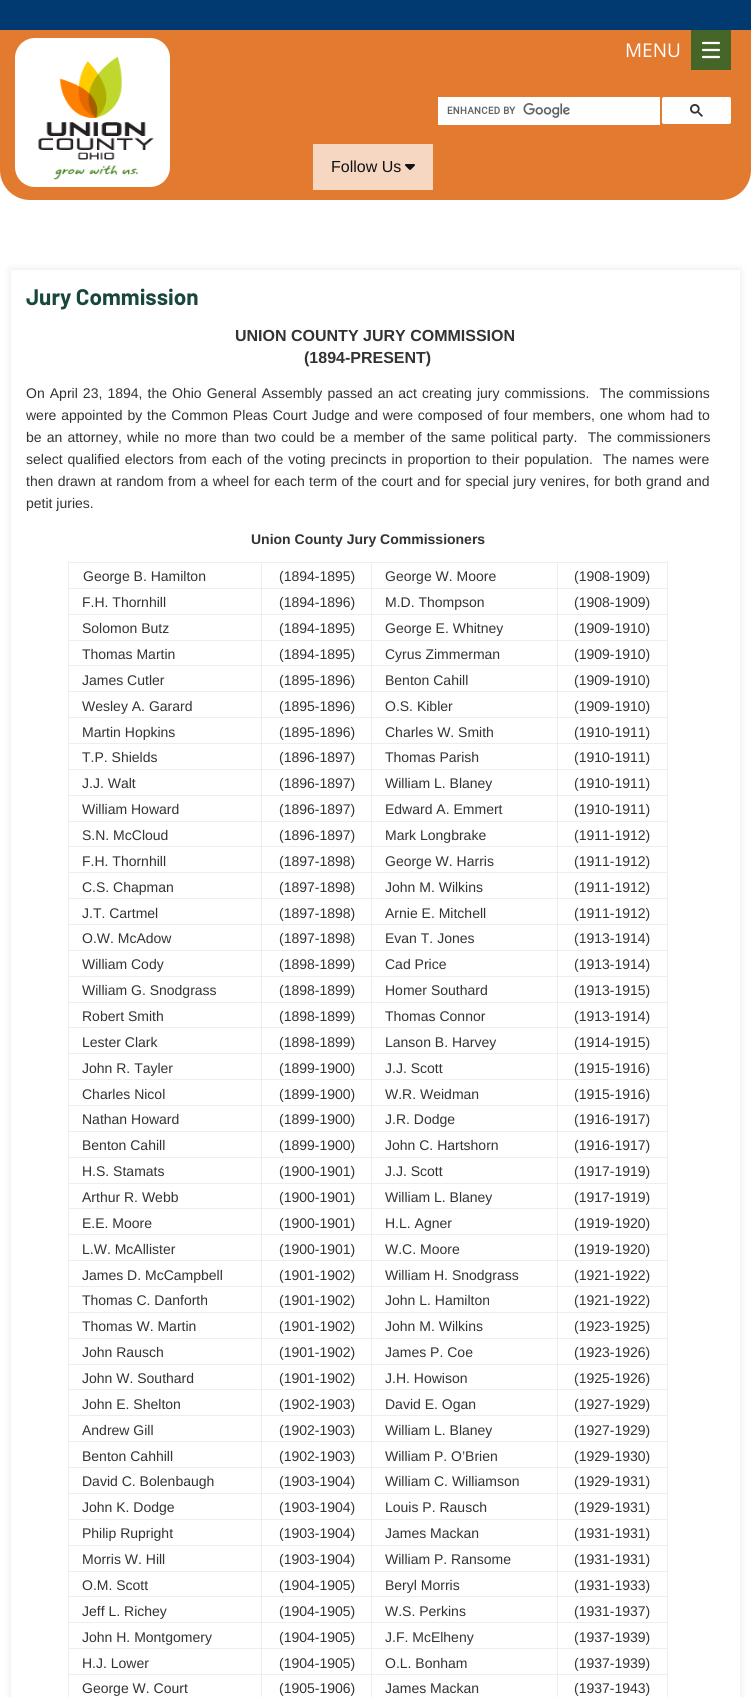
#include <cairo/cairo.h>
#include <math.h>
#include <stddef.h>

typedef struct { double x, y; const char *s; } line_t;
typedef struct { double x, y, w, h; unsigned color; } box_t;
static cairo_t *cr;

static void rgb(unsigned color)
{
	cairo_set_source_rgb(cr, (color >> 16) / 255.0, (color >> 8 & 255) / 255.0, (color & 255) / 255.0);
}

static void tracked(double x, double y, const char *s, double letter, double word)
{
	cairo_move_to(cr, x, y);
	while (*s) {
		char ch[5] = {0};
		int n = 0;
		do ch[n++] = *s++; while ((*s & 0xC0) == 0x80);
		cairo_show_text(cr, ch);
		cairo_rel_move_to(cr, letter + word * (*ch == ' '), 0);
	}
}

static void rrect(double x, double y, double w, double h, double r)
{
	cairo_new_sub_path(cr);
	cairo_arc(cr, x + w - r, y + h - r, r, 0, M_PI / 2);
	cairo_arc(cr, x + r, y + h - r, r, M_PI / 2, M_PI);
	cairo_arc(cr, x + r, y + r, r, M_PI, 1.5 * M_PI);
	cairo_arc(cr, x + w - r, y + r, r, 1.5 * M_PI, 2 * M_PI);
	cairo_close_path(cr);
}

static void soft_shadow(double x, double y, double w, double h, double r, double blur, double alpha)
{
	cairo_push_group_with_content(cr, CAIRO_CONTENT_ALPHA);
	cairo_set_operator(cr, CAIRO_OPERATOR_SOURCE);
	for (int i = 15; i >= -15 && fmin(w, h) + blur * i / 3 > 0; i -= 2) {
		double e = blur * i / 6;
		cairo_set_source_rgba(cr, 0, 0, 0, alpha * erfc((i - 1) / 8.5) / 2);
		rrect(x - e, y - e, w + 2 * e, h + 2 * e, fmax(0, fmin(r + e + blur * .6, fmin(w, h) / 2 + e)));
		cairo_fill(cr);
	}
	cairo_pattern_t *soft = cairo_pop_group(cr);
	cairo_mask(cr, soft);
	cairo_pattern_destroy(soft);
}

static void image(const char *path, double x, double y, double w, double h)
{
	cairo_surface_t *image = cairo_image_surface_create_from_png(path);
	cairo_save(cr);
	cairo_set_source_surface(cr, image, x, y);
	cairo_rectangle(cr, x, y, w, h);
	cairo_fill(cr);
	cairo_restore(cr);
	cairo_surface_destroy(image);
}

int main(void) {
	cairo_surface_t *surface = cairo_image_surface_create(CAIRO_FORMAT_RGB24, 751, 1697);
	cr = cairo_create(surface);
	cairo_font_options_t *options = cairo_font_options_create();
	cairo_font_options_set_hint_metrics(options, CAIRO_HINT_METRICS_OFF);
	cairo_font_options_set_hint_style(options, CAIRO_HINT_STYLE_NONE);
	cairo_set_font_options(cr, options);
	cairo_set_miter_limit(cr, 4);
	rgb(0xffffff);
	cairo_paint(cr);
	rgb(0x003a70);
	cairo_rectangle(cr, 0, 0, 751, 30);
	cairo_fill(cr);
	rgb(0xe27b30);
	cairo_new_path(cr);
	cairo_move_to(cr, 0, 30);
	cairo_line_to(cr, 751, 30);
	cairo_line_to(cr, 751, 170);
	cairo_curve_to(cr, 751, 186.5, 737.5, 200, 721, 200);
	cairo_line_to(cr, 30, 200);
	cairo_curve_to(cr, 13.5, 200, 0, 186.5, 0, 170);
	cairo_close_path(cr);
	cairo_fill(cr);
	rgb(0xffffff);
	rrect(15, 38, 155, 149, 20);
	cairo_fill(cr);
	image("img/1.png", 38, 56, 116, 124);
	rgb(0x466528);
	cairo_rectangle(cr, 691, 30, 40, 40);
	cairo_fill(cr);
	cairo_new_path(cr);
	cairo_move_to(cr, 703, 43);
	cairo_line_to(cr, 719, 43);
	cairo_move_to(cr, 703, 50);
	cairo_line_to(cr, 719, 50);
	cairo_move_to(cr, 719, 57);
	cairo_line_to(cr, 703, 57);
	rgb(0xffffff);
	cairo_set_line_width(cr, 2.2);
	cairo_set_line_cap(cr, CAIRO_LINE_CAP_ROUND);
	cairo_stroke(cr);
	cairo_rectangle(cr, 438, 97, 222, 28);
	cairo_fill(cr);
	image("img/2.png", 447, 103, 123, 15);
	rrect(662.5, 97.5, 68, 26, 1.5);
	cairo_fill_preserve(cr);
	cairo_set_line_width(cr, 1);
	cairo_set_line_cap(cr, CAIRO_LINE_CAP_BUTT);
	cairo_stroke(cr);
	image("img/3.png", 690, 104, 13, 13);
	rgb(0xf6d7c1);
	cairo_rectangle(cr, 313, 144, 120, 46);
	cairo_fill(cr);
	image("img/4.png", 405, 164, 10, 6);
	cairo_save(cr);
	cairo_set_fill_rule(cr, CAIRO_FILL_RULE_EVEN_ODD);
	cairo_new_path(cr);
	cairo_move_to(cr, 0, 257);
	cairo_line_to(cr, 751, 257);
	cairo_line_to(cr, 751, 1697);
	cairo_line_to(cr, 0, 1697);
	cairo_close_path(cr);
	cairo_move_to(cr, 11, 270);
	cairo_line_to(cr, 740, 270);
	cairo_line_to(cr, 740, 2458);
	cairo_line_to(cr, 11, 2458);
	cairo_close_path(cr);
	cairo_clip(cr);
	rgb(0x000000);
	soft_shadow(11, 270, 729, 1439, 0, 4, 0.1);
	cairo_restore(cr);
	{
		static const box_t items[] = {
			{557, 562, 111, 1, 0xeeeeee},
			{557, 588, 111, 1, 0xeeeeee},
			{557, 614, 111, 1, 0xeeeeee},
			{557, 640, 111, 1, 0xeeeeee},
			{557, 665, 111, 1, 0xeeeeee},
			{557, 691, 111, 1, 0xeeeeee},
			{557, 717, 111, 1, 0xeeeeee},
			{557, 743, 111, 1, 0xeeeeee},
			{557, 769, 111, 1, 0xeeeeee},
			{557, 795, 111, 1, 0xeeeeee},
			{557, 821, 111, 1, 0xeeeeee},
			{557, 846, 111, 1, 0xeeeeee},
			{557, 872, 111, 1, 0xeeeeee},
			{557, 898, 111, 1, 0xeeeeee},
			{557, 924, 111, 1, 0xeeeeee},
			{557, 950, 111, 1, 0xeeeeee},
			{557, 976, 111, 1, 0xeeeeee},
			{557, 1002, 111, 1, 0xeeeeee},
			{557, 1027, 111, 1, 0xeeeeee},
			{557, 1053, 111, 1, 0xeeeeee},
			{557, 1079, 111, 1, 0xeeeeee},
			{557, 1105, 111, 1, 0xeeeeee},
			{557, 1131, 111, 1, 0xeeeeee},
			{557, 1157, 111, 1, 0xeeeeee},
			{557, 1183, 111, 1, 0xeeeeee},
			{557, 1208, 111, 1, 0xeeeeee},
			{557, 1234, 111, 1, 0xeeeeee},
			{557, 1260, 111, 1, 0xeeeeee},
			{557, 1286, 111, 1, 0xeeeeee},
			{557, 1312, 111, 1, 0xeeeeee},
			{557, 1338, 111, 1, 0xeeeeee},
			{557, 1364, 111, 1, 0xeeeeee},
			{557, 1389, 111, 1, 0xeeeeee},
			{557, 1415, 111, 1, 0xeeeeee},
			{557, 1441, 111, 1, 0xeeeeee},
			{557, 1467, 111, 1, 0xeeeeee},
			{557, 1493, 111, 1, 0xeeeeee},
			{557, 1519, 111, 1, 0xeeeeee},
			{557, 1545, 111, 1, 0xeeeeee},
			{557, 1571, 111, 1, 0xeeeeee},
			{557, 1596, 111, 1, 0xeeeeee},
			{557, 1622, 111, 1, 0xeeeeee},
			{557, 1648, 111, 1, 0xeeeeee},
			{557, 1674, 111, 1, 0xeeeeee},
			{557, 1674, 1, 23, 0xeeeeee},
			{371, 1674, 187, 1, 0xeeeeee},
			{557, 1648, 1, 27, 0xeeeeee},
			{371, 1648, 187, 1, 0xeeeeee},
			{557, 1622, 1, 27, 0xeeeeee},
			{371, 1622, 187, 1, 0xeeeeee},
			{557, 1596, 1, 27, 0xeeeeee},
			{371, 1596, 187, 1, 0xeeeeee},
			{557, 1571, 1, 26, 0xeeeeee},
			{371, 1571, 187, 1, 0xeeeeee},
			{557, 1545, 1, 27, 0xeeeeee},
			{371, 1545, 187, 1, 0xeeeeee},
			{557, 1519, 1, 27, 0xeeeeee},
			{371, 1519, 187, 1, 0xeeeeee},
			{557, 1493, 1, 27, 0xeeeeee},
			{371, 1493, 187, 1, 0xeeeeee},
			{557, 1467, 1, 27, 0xeeeeee},
			{371, 1467, 187, 1, 0xeeeeee},
			{557, 1441, 1, 27, 0xeeeeee},
			{371, 1441, 187, 1, 0xeeeeee},
			{557, 1415, 1, 27, 0xeeeeee},
			{371, 1415, 187, 1, 0xeeeeee},
			{557, 1389, 1, 27, 0xeeeeee},
			{371, 1389, 187, 1, 0xeeeeee},
			{557, 1364, 1, 26, 0xeeeeee},
			{371, 1364, 187, 1, 0xeeeeee},
			{557, 1338, 1, 27, 0xeeeeee},
			{371, 1338, 187, 1, 0xeeeeee},
			{557, 1312, 1, 27, 0xeeeeee},
			{371, 1312, 187, 1, 0xeeeeee},
			{557, 1286, 1, 27, 0xeeeeee},
			{371, 1286, 187, 1, 0xeeeeee},
			{557, 1260, 1, 27, 0xeeeeee},
			{371, 1260, 187, 1, 0xeeeeee},
			{557, 1234, 1, 27, 0xeeeeee},
			{371, 1234, 187, 1, 0xeeeeee},
			{557, 1208, 1, 27, 0xeeeeee},
			{371, 1208, 187, 1, 0xeeeeee},
			{557, 1183, 1, 26, 0xeeeeee},
			{371, 1183, 187, 1, 0xeeeeee},
			{557, 1157, 1, 27, 0xeeeeee},
			{371, 1157, 187, 1, 0xeeeeee},
			{557, 1131, 1, 27, 0xeeeeee},
			{371, 1131, 187, 1, 0xeeeeee},
			{557, 1105, 1, 27, 0xeeeeee},
			{371, 1105, 187, 1, 0xeeeeee},
			{557, 1079, 1, 27, 0xeeeeee},
			{371, 1079, 187, 1, 0xeeeeee},
			{557, 1053, 1, 27, 0xeeeeee},
			{371, 1053, 187, 1, 0xeeeeee},
			{557, 1027, 1, 27, 0xeeeeee},
			{371, 1027, 187, 1, 0xeeeeee},
			{557, 1002, 1, 26, 0xeeeeee},
			{371, 1002, 187, 1, 0xeeeeee},
			{557, 976, 1, 27, 0xeeeeee},
			{371, 976, 187, 1, 0xeeeeee},
			{557, 950, 1, 27, 0xeeeeee},
			{371, 950, 187, 1, 0xeeeeee},
			{557, 924, 1, 27, 0xeeeeee},
			{371, 924, 187, 1, 0xeeeeee},
			{557, 898, 1, 27, 0xeeeeee},
			{371, 898, 187, 1, 0xeeeeee},
			{557, 872, 1, 27, 0xeeeeee},
			{371, 872, 187, 1, 0xeeeeee},
			{557, 846, 1, 27, 0xeeeeee},
			{371, 846, 187, 1, 0xeeeeee},
			{557, 821, 1, 26, 0xeeeeee},
			{371, 821, 187, 1, 0xeeeeee},
			{557, 795, 1, 27, 0xeeeeee},
			{371, 795, 187, 1, 0xeeeeee},
			{557, 769, 1, 27, 0xeeeeee},
			{371, 769, 187, 1, 0xeeeeee},
			{557, 743, 1, 27, 0xeeeeee},
			{371, 743, 187, 1, 0xeeeeee},
			{557, 717, 1, 27, 0xeeeeee},
			{371, 717, 187, 1, 0xeeeeee},
			{557, 691, 1, 27, 0xeeeeee},
			{371, 691, 187, 1, 0xeeeeee},
			{557, 665, 1, 27, 0xeeeeee},
			{371, 665, 187, 1, 0xeeeeee},
			{557, 640, 1, 26, 0xeeeeee},
			{371, 640, 187, 1, 0xeeeeee},
			{557, 614, 1, 27, 0xeeeeee},
			{371, 614, 187, 1, 0xeeeeee},
			{557, 588, 1, 27, 0xeeeeee},
			{371, 588, 187, 1, 0xeeeeee},
			{557, 562, 1, 27, 0xeeeeee},
			{371, 562, 187, 1, 0xeeeeee},
			{371, 1674, 1, 23, 0xeeeeee},
			{261, 1674, 111, 1, 0xeeeeee},
			{371, 1648, 1, 27, 0xeeeeee},
			{261, 1648, 111, 1, 0xeeeeee},
			{371, 1622, 1, 27, 0xeeeeee},
			{261, 1622, 111, 1, 0xeeeeee},
			{371, 1596, 1, 27, 0xeeeeee},
			{261, 1596, 111, 1, 0xeeeeee},
			{371, 1571, 1, 26, 0xeeeeee},
			{261, 1571, 111, 1, 0xeeeeee},
			{371, 1545, 1, 27, 0xeeeeee},
			{261, 1545, 111, 1, 0xeeeeee},
			{371, 1519, 1, 27, 0xeeeeee},
			{261, 1519, 111, 1, 0xeeeeee},
			{371, 1493, 1, 27, 0xeeeeee},
			{261, 1493, 111, 1, 0xeeeeee},
			{371, 1467, 1, 27, 0xeeeeee},
			{261, 1467, 111, 1, 0xeeeeee},
			{371, 1441, 1, 27, 0xeeeeee},
			{261, 1441, 111, 1, 0xeeeeee},
			{371, 1415, 1, 27, 0xeeeeee},
			{261, 1415, 111, 1, 0xeeeeee},
			{371, 1389, 1, 27, 0xeeeeee},
			{261, 1389, 111, 1, 0xeeeeee},
			{371, 1364, 1, 26, 0xeeeeee},
			{261, 1364, 111, 1, 0xeeeeee},
			{371, 1338, 1, 27, 0xeeeeee},
			{261, 1338, 111, 1, 0xeeeeee},
			{371, 1312, 1, 27, 0xeeeeee},
			{261, 1312, 111, 1, 0xeeeeee},
			{371, 1286, 1, 27, 0xeeeeee},
			{261, 1286, 111, 1, 0xeeeeee},
			{371, 1260, 1, 27, 0xeeeeee},
			{261, 1260, 111, 1, 0xeeeeee},
			{371, 1234, 1, 27, 0xeeeeee},
			{261, 1234, 111, 1, 0xeeeeee},
			{371, 1208, 1, 27, 0xeeeeee},
			{261, 1208, 111, 1, 0xeeeeee},
			{371, 1183, 1, 26, 0xeeeeee},
			{261, 1183, 111, 1, 0xeeeeee},
			{371, 1157, 1, 27, 0xeeeeee},
			{261, 1157, 111, 1, 0xeeeeee},
			{371, 1131, 1, 27, 0xeeeeee},
			{261, 1131, 111, 1, 0xeeeeee},
			{371, 1105, 1, 27, 0xeeeeee},
			{261, 1105, 111, 1, 0xeeeeee},
			{371, 1079, 1, 27, 0xeeeeee},
			{261, 1079, 111, 1, 0xeeeeee},
			{371, 1053, 1, 27, 0xeeeeee},
			{261, 1053, 111, 1, 0xeeeeee},
			{371, 1027, 1, 27, 0xeeeeee},
			{261, 1027, 111, 1, 0xeeeeee},
			{371, 1002, 1, 26, 0xeeeeee},
			{261, 1002, 111, 1, 0xeeeeee},
			{371, 976, 1, 27, 0xeeeeee},
			{261, 976, 111, 1, 0xeeeeee},
			{371, 950, 1, 27, 0xeeeeee},
			{261, 950, 111, 1, 0xeeeeee},
			{371, 924, 1, 27, 0xeeeeee},
			{261, 924, 111, 1, 0xeeeeee},
			{371, 898, 1, 27, 0xeeeeee},
			{261, 898, 111, 1, 0xeeeeee},
			{371, 872, 1, 27, 0xeeeeee},
			{261, 872, 111, 1, 0xeeeeee},
			{371, 846, 1, 27, 0xeeeeee},
			{261, 846, 111, 1, 0xeeeeee},
			{371, 821, 1, 26, 0xeeeeee},
			{261, 821, 111, 1, 0xeeeeee},
			{371, 795, 1, 27, 0xeeeeee},
			{261, 795, 111, 1, 0xeeeeee},
			{371, 769, 1, 27, 0xeeeeee},
			{261, 769, 111, 1, 0xeeeeee},
			{371, 743, 1, 27, 0xeeeeee},
			{261, 743, 111, 1, 0xeeeeee},
			{371, 717, 1, 27, 0xeeeeee},
			{261, 717, 111, 1, 0xeeeeee},
			{371, 691, 1, 27, 0xeeeeee},
			{261, 691, 111, 1, 0xeeeeee},
			{371, 665, 1, 27, 0xeeeeee},
			{261, 665, 111, 1, 0xeeeeee},
			{371, 640, 1, 26, 0xeeeeee},
			{261, 640, 111, 1, 0xeeeeee},
			{371, 614, 1, 27, 0xeeeeee},
			{261, 614, 111, 1, 0xeeeeee},
			{371, 588, 1, 27, 0xeeeeee},
			{261, 588, 111, 1, 0xeeeeee},
			{371, 562, 1, 27, 0xeeeeee},
			{261, 562, 111, 1, 0xeeeeee},
			{261, 1674, 1, 23, 0xeeeeee},
			{68, 1674, 194, 1, 0xeeeeee},
			{261, 1648, 1, 27, 0xeeeeee},
			{68, 1648, 194, 1, 0xeeeeee},
			{261, 1622, 1, 27, 0xeeeeee},
			{68, 1622, 194, 1, 0xeeeeee},
			{261, 1596, 1, 27, 0xeeeeee},
			{68, 1596, 194, 1, 0xeeeeee},
			{261, 1571, 1, 26, 0xeeeeee},
			{68, 1571, 194, 1, 0xeeeeee},
			{261, 1545, 1, 27, 0xeeeeee},
			{68, 1545, 194, 1, 0xeeeeee},
			{261, 1519, 1, 27, 0xeeeeee},
			{68, 1519, 194, 1, 0xeeeeee},
			{261, 1493, 1, 27, 0xeeeeee},
			{68, 1493, 194, 1, 0xeeeeee},
			{261, 1467, 1, 27, 0xeeeeee},
			{68, 1467, 194, 1, 0xeeeeee},
			{261, 1441, 1, 27, 0xeeeeee},
			{68, 1441, 194, 1, 0xeeeeee},
			{261, 1415, 1, 27, 0xeeeeee},
			{68, 1415, 194, 1, 0xeeeeee},
			{261, 1389, 1, 27, 0xeeeeee},
			{68, 1389, 194, 1, 0xeeeeee},
			{261, 1364, 1, 26, 0xeeeeee},
			{68, 1364, 194, 1, 0xeeeeee},
			{261, 1338, 1, 27, 0xeeeeee},
			{68, 1338, 194, 1, 0xeeeeee},
			{261, 1312, 1, 27, 0xeeeeee},
			{68, 1312, 194, 1, 0xeeeeee},
			{261, 1286, 1, 27, 0xeeeeee},
			{68, 1286, 194, 1, 0xeeeeee},
			{261, 1260, 1, 27, 0xeeeeee},
			{68, 1260, 194, 1, 0xeeeeee},
			{261, 1234, 1, 27, 0xeeeeee},
			{68, 1234, 194, 1, 0xeeeeee},
			{261, 1208, 1, 27, 0xeeeeee},
			{68, 1208, 194, 1, 0xeeeeee},
			{261, 1183, 1, 26, 0xeeeeee},
			{68, 1183, 194, 1, 0xeeeeee},
			{261, 1157, 1, 27, 0xeeeeee},
			{68, 1157, 194, 1, 0xeeeeee},
			{261, 1131, 1, 27, 0xeeeeee},
			{68, 1131, 194, 1, 0xeeeeee},
			{261, 1105, 1, 27, 0xeeeeee},
			{68, 1105, 194, 1, 0xeeeeee},
			{261, 1079, 1, 27, 0xeeeeee},
			{68, 1079, 194, 1, 0xeeeeee},
			{261, 1053, 1, 27, 0xeeeeee},
			{68, 1053, 194, 1, 0xeeeeee},
			{261, 1027, 1, 27, 0xeeeeee},
			{68, 1027, 194, 1, 0xeeeeee},
			{261, 1002, 1, 26, 0xeeeeee},
			{68, 1002, 194, 1, 0xeeeeee},
			{261, 976, 1, 27, 0xeeeeee},
			{68, 976, 194, 1, 0xeeeeee},
			{261, 950, 1, 27, 0xeeeeee},
			{68, 950, 194, 1, 0xeeeeee},
			{261, 924, 1, 27, 0xeeeeee},
			{68, 924, 194, 1, 0xeeeeee},
			{261, 898, 1, 27, 0xeeeeee},
			{68, 898, 194, 1, 0xeeeeee},
			{261, 872, 1, 27, 0xeeeeee},
			{68, 872, 194, 1, 0xeeeeee},
			{261, 846, 1, 27, 0xeeeeee},
			{68, 846, 194, 1, 0xeeeeee},
			{261, 821, 1, 26, 0xeeeeee},
			{68, 821, 194, 1, 0xeeeeee},
			{261, 795, 1, 27, 0xeeeeee},
			{68, 795, 194, 1, 0xeeeeee},
			{261, 769, 1, 27, 0xeeeeee},
			{68, 769, 194, 1, 0xeeeeee},
			{261, 743, 1, 27, 0xeeeeee},
			{68, 743, 194, 1, 0xeeeeee},
			{261, 717, 1, 27, 0xeeeeee},
			{68, 717, 194, 1, 0xeeeeee},
			{261, 691, 1, 27, 0xeeeeee},
			{68, 691, 194, 1, 0xeeeeee},
			{261, 665, 1, 27, 0xeeeeee},
			{68, 665, 194, 1, 0xeeeeee},
			{261, 640, 1, 26, 0xeeeeee},
			{68, 640, 194, 1, 0xeeeeee},
			{261, 614, 1, 27, 0xeeeeee},
			{68, 614, 194, 1, 0xeeeeee},
			{261, 588, 1, 27, 0xeeeeee},
			{68, 588, 194, 1, 0xeeeeee},
			{261, 562, 1, 27, 0xeeeeee},
			{68, 562, 194, 1, 0xeeeeee},
			{68, 1674, 1, 23, 0xeeeeee},
			{68, 1648, 1, 27, 0xeeeeee},
			{68, 1622, 1, 27, 0xeeeeee},
			{68, 1596, 1, 27, 0xeeeeee},
			{68, 1571, 1, 26, 0xeeeeee},
			{68, 1545, 1, 27, 0xeeeeee},
			{68, 1519, 1, 27, 0xeeeeee},
			{68, 1493, 1, 27, 0xeeeeee},
			{68, 1467, 1, 27, 0xeeeeee},
			{68, 1441, 1, 27, 0xeeeeee},
			{68, 1415, 1, 27, 0xeeeeee},
			{68, 1389, 1, 27, 0xeeeeee},
			{68, 1364, 1, 26, 0xeeeeee},
			{68, 1338, 1, 27, 0xeeeeee},
			{68, 1312, 1, 27, 0xeeeeee},
			{68, 1286, 1, 27, 0xeeeeee},
			{68, 1260, 1, 27, 0xeeeeee},
			{68, 1234, 1, 27, 0xeeeeee},
			{68, 1208, 1, 27, 0xeeeeee},
			{68, 1183, 1, 26, 0xeeeeee},
			{68, 1157, 1, 27, 0xeeeeee},
			{68, 1131, 1, 27, 0xeeeeee},
			{68, 1105, 1, 27, 0xeeeeee},
			{68, 1079, 1, 27, 0xeeeeee},
			{68, 1053, 1, 27, 0xeeeeee},
			{68, 1027, 1, 27, 0xeeeeee},
			{68, 1002, 1, 26, 0xeeeeee},
			{68, 976, 1, 27, 0xeeeeee},
			{68, 950, 1, 27, 0xeeeeee},
			{68, 924, 1, 27, 0xeeeeee},
			{68, 898, 1, 27, 0xeeeeee},
			{68, 872, 1, 27, 0xeeeeee},
			{68, 846, 1, 27, 0xeeeeee},
			{68, 821, 1, 26, 0xeeeeee},
			{68, 795, 1, 27, 0xeeeeee},
			{68, 769, 1, 27, 0xeeeeee},
			{68, 743, 1, 27, 0xeeeeee},
			{68, 717, 1, 27, 0xeeeeee},
			{68, 691, 1, 27, 0xeeeeee},
			{68, 665, 1, 27, 0xeeeeee},
			{68, 640, 1, 26, 0xeeeeee},
			{68, 614, 1, 27, 0xeeeeee},
			{68, 588, 1, 27, 0xeeeeee},
			{68, 562, 1, 27, 0xeeeeee},
			{667, 1674, 1, 23, 0xeeeeee},
			{667, 1648, 1, 27, 0xeeeeee},
			{667, 1622, 1, 27, 0xeeeeee},
			{667, 1596, 1, 27, 0xeeeeee},
			{667, 1571, 1, 26, 0xeeeeee},
			{667, 1545, 1, 27, 0xeeeeee},
			{667, 1519, 1, 27, 0xeeeeee},
			{667, 1493, 1, 27, 0xeeeeee},
			{667, 1467, 1, 27, 0xeeeeee},
			{667, 1441, 1, 27, 0xeeeeee},
			{667, 1415, 1, 27, 0xeeeeee},
			{667, 1389, 1, 27, 0xeeeeee},
			{667, 1364, 1, 26, 0xeeeeee},
			{667, 1338, 1, 27, 0xeeeeee},
			{667, 1312, 1, 27, 0xeeeeee},
			{667, 1286, 1, 27, 0xeeeeee},
			{667, 1260, 1, 27, 0xeeeeee},
			{667, 1234, 1, 27, 0xeeeeee},
			{667, 1208, 1, 27, 0xeeeeee},
			{667, 1183, 1, 26, 0xeeeeee},
			{667, 1157, 1, 27, 0xeeeeee},
			{667, 1131, 1, 27, 0xeeeeee},
			{667, 1105, 1, 27, 0xeeeeee},
			{667, 1079, 1, 27, 0xeeeeee},
			{667, 1053, 1, 27, 0xeeeeee},
			{667, 1027, 1, 27, 0xeeeeee},
			{667, 1002, 1, 26, 0xeeeeee},
			{667, 976, 1, 27, 0xeeeeee},
			{667, 950, 1, 27, 0xeeeeee},
			{667, 924, 1, 27, 0xeeeeee},
			{667, 898, 1, 27, 0xeeeeee},
			{667, 872, 1, 27, 0xeeeeee},
			{667, 846, 1, 27, 0xeeeeee},
			{667, 821, 1, 26, 0xeeeeee},
			{667, 795, 1, 27, 0xeeeeee},
			{667, 769, 1, 27, 0xeeeeee},
			{667, 743, 1, 27, 0xeeeeee},
			{667, 717, 1, 27, 0xeeeeee},
			{667, 691, 1, 27, 0xeeeeee},
			{667, 665, 1, 27, 0xeeeeee},
			{667, 640, 1, 26, 0xeeeeee},
			{667, 614, 1, 27, 0xeeeeee},
			{667, 588, 1, 27, 0xeeeeee},
			{667, 562, 1, 27, 0xeeeeee},
		};
		for (size_t i = 0; i < sizeof items / sizeof *items; i++) {
			rgb(items[i].color);
			cairo_rectangle(cr, items[i].x, items[i].y, items[i].w, items[i].h);
			cairo_fill(cr);
		}
	}
	cairo_select_font_face(cr, "Open Sans", CAIRO_FONT_SLANT_NORMAL, CAIRO_FONT_WEIGHT_NORMAL);
	cairo_set_font_size(cr, 19);
	rgb(0xffffff);
	cairo_move_to(cr, 625, 57);
	cairo_show_text(cr, "MENU");
	cairo_select_font_face(cr, "Liberation Sans", CAIRO_FONT_SLANT_NORMAL, CAIRO_FONT_WEIGHT_NORMAL);
	cairo_set_font_size(cr, 16);
	rgb(0x121212);
	cairo_move_to(cr, 331, 172);
	cairo_show_text(cr, "Follow Us");
	cairo_select_font_face(cr, "Barlow", CAIRO_FONT_SLANT_NORMAL, CAIRO_FONT_WEIGHT_BOLD);
	cairo_set_font_size(cr, 22.5);
	rgb(0x18473d);
	cairo_move_to(cr, 26, 305);
	cairo_show_text(cr, "Jury Commission");
	cairo_select_font_face(cr, "Liberation Sans", CAIRO_FONT_SLANT_NORMAL, CAIRO_FONT_WEIGHT_BOLD);
	cairo_set_font_size(cr, 16);
	rgb(0x333333);
	cairo_move_to(cr, 235, 341);
	cairo_show_text(cr, "UNION COUNTY JURY COMMISSION");
	cairo_move_to(cr, 304, 363);
	cairo_show_text(cr, "(1894-PRESENT)");
	cairo_select_font_face(cr, "Liberation Sans", CAIRO_FONT_SLANT_NORMAL, CAIRO_FONT_WEIGHT_NORMAL);
	cairo_set_font_size(cr, 14);
	tracked(26, 398, "On April 23, 1894, the Ohio General Assembly passed an act creating jury commissions.  The commissions", 0, 1.2);
	tracked(26, 420, "were appointed by the Common Pleas Court Judge and were composed of four members, one whom had to", 0, 0.9);
	tracked(26, 442, "be an attorney, while no more than two could be a member of the same political party.  The commissioners", 0, 1.25);
	tracked(26, 464, "select qualified electors from each of the voting precincts in proportion to their population.  The names were", 0, 1.1);
	tracked(26, 486, "then drawn at random from a wheel for each term of the court and for special jury venires, for both grand and", 0, 0.5);
	cairo_move_to(cr, 26, 508);
	cairo_show_text(cr, "petit juries.");
	cairo_select_font_face(cr, "Liberation Sans", CAIRO_FONT_SLANT_NORMAL, CAIRO_FONT_WEIGHT_BOLD);
	cairo_move_to(cr, 251, 544);
	cairo_show_text(cr, "Union County Jury Commissioners");
	cairo_select_font_face(cr, "Liberation Sans", CAIRO_FONT_SLANT_NORMAL, CAIRO_FONT_WEIGHT_NORMAL);
	{
		static const line_t items[] = {
			{83, 581, "George B. Hamilton"},
			{279, 581, "(1894-1895)"},
			{385, 581, "George W. Moore"},
			{574, 581, "(1908-1909)"},
			{82, 607, "F.H. Thornhill"},
			{279, 607, "(1894-1896)"},
			{385, 607, "M.D. Thompson"},
			{574, 607, "(1908-1909)"},
			{82, 633, "Solomon Butz"},
			{279, 633, "(1894-1895)"},
			{385, 633, "George E. Whitney"},
			{574, 633, "(1909-1910)"},
			{82, 659, "Thomas Martin"},
			{279, 659, "(1894-1895)"},
			{385, 659, "Cyrus Zimmerman"},
			{574, 659, "(1909-1910)"},
			{82, 685, "James Cutler"},
			{279, 685, "(1895-1896)"},
			{385, 685, "Benton Cahill"},
			{574, 685, "(1909-1910)"},
			{82, 711, "Wesley A. Garard"},
			{279, 711, "(1895-1896)"},
			{385, 711, "O.S. Kibler"},
			{574, 711, "(1909-1910)"},
			{82, 737, "Martin Hopkins"},
			{279, 737, "(1895-1896)"},
			{385, 737, "Charles W. Smith"},
			{574, 737, "(1910-1911)"},
			{82, 762, "T.P. Shields"},
			{279, 762, "(1896-1897)"},
			{385, 762, "Thomas Parish"},
			{574, 762, "(1910-1911)"},
			{82, 788, "J.J. Walt"},
			{279, 788, "(1896-1897)"},
			{385, 788, "William L. Blaney"},
			{574, 788, "(1910-1911)"},
			{82, 814, "William Howard"},
			{279, 814, "(1896-1897)"},
			{385, 814, "Edward A. Emmert"},
			{574, 814, "(1910-1911)"},
			{82, 840, "S.N. McCloud"},
			{279, 840, "(1896-1897)"},
			{385, 840, "Mark Longbrake"},
			{574, 840, "(1911-1912)"},
			{82, 866, "F.H. Thornhill"},
			{279, 866, "(1897-1898)"},
			{385, 866, "George W. Harris"},
			{574, 866, "(1911-1912)"},
			{82, 892, "C.S. Chapman"},
			{279, 892, "(1897-1898)"},
			{385, 892, "John M. Wilkins"},
			{574, 892, "(1911-1912)"},
			{82, 918, "J.T. Cartmel"},
			{279, 918, "(1897-1898)"},
			{385, 918, "Arnie E. Mitchell"},
			{574, 918, "(1911-1912)"},
			{82, 943, "O.W. McAdow"},
			{279, 943, "(1897-1898)"},
			{385, 943, "Evan T. Jones"},
			{574, 943, "(1913-1914)"},
			{82, 969, "William Cody"},
			{279, 969, "(1898-1899)"},
			{385, 969, "Cad Price"},
			{574, 969, "(1913-1914)"},
			{82, 995, "William G. Snodgrass"},
			{279, 995, "(1898-1899)"},
			{385, 995, "Homer Southard"},
			{574, 995, "(1913-1915)"},
			{82, 1021, "Robert Smith"},
			{279, 1021, "(1898-1899)"},
			{385, 1021, "Thomas Connor"},
			{574, 1021, "(1913-1914)"},
			{82, 1047, "Lester Clark"},
			{279, 1047, "(1898-1899)"},
			{385, 1047, "Lanson B. Harvey"},
			{574, 1047, "(1914-1915)"},
			{82, 1073, "John R. Tayler"},
			{279, 1073, "(1899-1900)"},
			{385, 1073, "J.J. Scott"},
			{574, 1073, "(1915-1916)"},
			{82, 1099, "Charles Nicol"},
			{279, 1099, "(1899-1900)"},
			{385, 1099, "W.R. Weidman"},
			{574, 1099, "(1915-1916)"},
			{82, 1124, "Nathan Howard"},
			{279, 1124, "(1899-1900)"},
			{385, 1124, "J.R. Dodge"},
			{574, 1124, "(1916-1917)"},
			{82, 1150, "Benton Cahill"},
			{279, 1150, "(1899-1900)"},
			{385, 1150, "John C. Hartshorn"},
			{574, 1150, "(1916-1917)"},
			{82, 1176, "H.S. Stamats"},
			{279, 1176, "(1900-1901)"},
			{385, 1176, "J.J. Scott"},
			{574, 1176, "(1917-1919)"},
			{82, 1202, "Arthur R. Webb"},
			{279, 1202, "(1900-1901)"},
			{385, 1202, "William L. Blaney"},
			{574, 1202, "(1917-1919)"},
			{82, 1228, "E.E. Moore"},
			{279, 1228, "(1900-1901)"},
			{385, 1228, "H.L. Agner"},
			{574, 1228, "(1919-1920)"},
			{82, 1254, "L.W. McAllister"},
			{279, 1254, "(1900-1901)"},
			{385, 1254, "W.C. Moore"},
			{574, 1254, "(1919-1920)"},
			{82, 1280, "James D. McCampbell"},
			{279, 1280, "(1901-1902)"},
			{385, 1280, "William H. Snodgrass"},
			{574, 1280, "(1921-1922)"},
			{82, 1305, "Thomas C. Danforth"},
			{279, 1305, "(1901-1902)"},
			{385, 1305, "John L. Hamilton"},
			{574, 1305, "(1921-1922)"},
			{82, 1331, "Thomas W. Martin"},
			{279, 1331, "(1901-1902)"},
			{385, 1331, "John M. Wilkins"},
			{574, 1331, "(1923-1925)"},
			{82, 1357, "John Rausch"},
			{279, 1357, "(1901-1902)"},
			{385, 1357, "James P. Coe"},
			{574, 1357, "(1923-1926)"},
			{82, 1383, "John W. Southard"},
			{279, 1383, "(1901-1902)"},
			{385, 1383, "J.H. Howison"},
			{574, 1383, "(1925-1926)"},
			{82, 1409, "John E. Shelton"},
			{279, 1409, "(1902-1903)"},
			{385, 1409, "David E. Ogan"},
			{574, 1409, "(1927-1929)"},
			{82, 1435, "Andrew Gill"},
			{279, 1435, "(1902-1903)"},
			{385, 1435, "William L. Blaney"},
			{574, 1435, "(1927-1929)"},
			{82, 1461, "Benton Cahhill"},
			{279, 1461, "(1902-1903)"},
			{385, 1461, "William P. O’Brien"},
			{574, 1461, "(1929-1930)"},
			{82, 1486, "David C. Bolenbaugh"},
			{279, 1486, "(1903-1904)"},
			{385, 1486, "William C. Williamson"},
			{574, 1486, "(1929-1931)"},
			{82, 1512, "John K. Dodge"},
			{279, 1512, "(1903-1904)"},
			{385, 1512, "Louis P. Rausch"},
			{574, 1512, "(1929-1931)"},
			{82, 1538, "Philip Rupright"},
			{279, 1538, "(1903-1904)"},
			{385, 1538, "James Mackan"},
			{574, 1538, "(1931-1931)"},
			{82, 1564, "Morris W. Hill"},
			{279, 1564, "(1903-1904)"},
			{385, 1564, "William P. Ransome"},
			{574, 1564, "(1931-1931)"},
			{82, 1590, "O.M. Scott"},
			{279, 1590, "(1904-1905)"},
			{385, 1590, "Beryl Morris"},
			{574, 1590, "(1931-1933)"},
			{82, 1616, "Jeff L. Richey"},
			{279, 1616, "(1904-1905)"},
			{385, 1616, "W.S. Perkins"},
			{574, 1616, "(1931-1937)"},
			{82, 1642, "John H. Montgomery"},
			{279, 1642, "(1904-1905)"},
			{385, 1642, "J.F. McElheny"},
			{574, 1642, "(1937-1939)"},
			{82, 1668, "H.J. Lower"},
			{279, 1668, "(1904-1905)"},
			{385, 1668, "O.L. Bonham"},
			{574, 1668, "(1937-1939)"},
			{82, 1693, "George W. Court"},
			{279, 1693, "(1905-1906)"},
			{385, 1693, "James Mackan"},
			{574, 1693, "(1937-1943)"},
		};
		for (size_t i = 0; i < sizeof items / sizeof *items; i++) {
			cairo_move_to(cr, items[i].x, items[i].y);
			cairo_show_text(cr, items[i].s);
		}
	}
	cairo_surface_write_to_png(surface, "page.png");
	cairo_font_options_destroy(options);
	cairo_destroy(cr);
	cairo_surface_destroy(surface);
	return 0;
}
